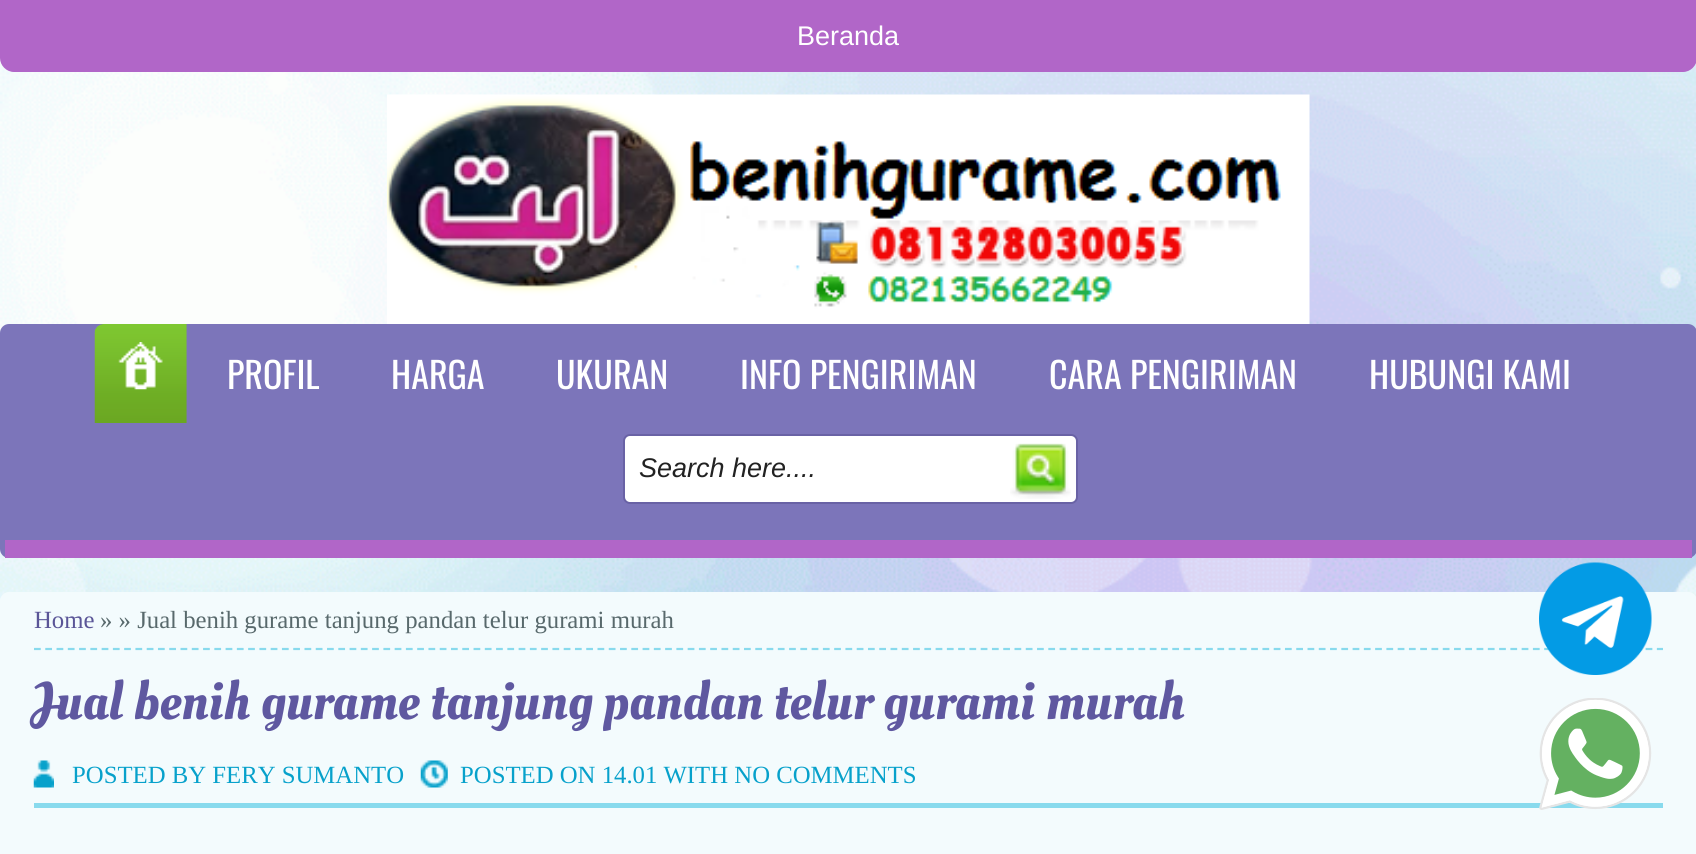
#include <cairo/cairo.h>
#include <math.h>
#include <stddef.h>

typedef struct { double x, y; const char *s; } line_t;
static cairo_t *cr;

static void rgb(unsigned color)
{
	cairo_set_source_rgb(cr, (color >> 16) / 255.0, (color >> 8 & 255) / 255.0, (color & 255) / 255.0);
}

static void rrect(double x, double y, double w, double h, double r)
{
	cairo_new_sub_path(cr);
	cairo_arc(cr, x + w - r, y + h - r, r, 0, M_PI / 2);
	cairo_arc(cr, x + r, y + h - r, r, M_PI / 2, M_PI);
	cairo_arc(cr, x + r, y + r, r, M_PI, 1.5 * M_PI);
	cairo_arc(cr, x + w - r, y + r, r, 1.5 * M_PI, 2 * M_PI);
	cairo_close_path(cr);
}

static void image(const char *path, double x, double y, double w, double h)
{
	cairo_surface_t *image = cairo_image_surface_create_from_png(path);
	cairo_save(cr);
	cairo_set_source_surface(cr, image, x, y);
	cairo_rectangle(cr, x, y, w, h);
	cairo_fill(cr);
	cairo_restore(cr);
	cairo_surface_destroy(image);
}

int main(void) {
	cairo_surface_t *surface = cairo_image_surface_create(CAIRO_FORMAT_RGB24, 1696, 854);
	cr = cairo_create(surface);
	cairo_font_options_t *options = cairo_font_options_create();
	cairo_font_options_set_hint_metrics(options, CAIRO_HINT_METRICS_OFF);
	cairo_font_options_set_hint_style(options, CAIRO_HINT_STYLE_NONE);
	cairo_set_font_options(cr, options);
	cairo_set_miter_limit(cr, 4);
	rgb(0xffffff);
	cairo_paint(cr);
	image("img/1.png", 0, 58, 1696, 543);
	rgb(0xb166c8);
	cairo_new_path(cr);
	cairo_move_to(cr, 0, 0);
	cairo_line_to(cr, 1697, 0);
	cairo_line_to(cr, 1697, 58);
	cairo_curve_to(cr, 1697, 65.5, 1690.5, 72, 1683, 72);
	cairo_line_to(cr, 14, 72);
	cairo_curve_to(cr, 6.5, 72, 0, 65.5, 0, 58);
	cairo_close_path(cr);
	cairo_fill(cr);
	image("img/2.png", 387, 94, 923, 230);
	rgb(0x7c75ba);
	rrect(0, 324, 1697, 234, 9);
	cairo_fill(cr);
	rgb(0xb166c8);
	cairo_rectangle(cr, 5, 540, 1687, 18);
	cairo_fill(cr);
	image("img/3.png", 94, 324, 93, 99);
	image("img/4.png", 118, 342, 45, 48);
	rgb(0xffffff);
	rrect(624, 435, 453, 68, 6);
	cairo_fill_preserve(cr);
	rgb(0x6962a5);
	cairo_stroke(cr);
	image("img/5.png", 1010, 443, 61, 56);
	rgb(0xf3fbfd);
	rrect(0, 592, 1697, 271, 9);
	cairo_fill(cr);
	cairo_new_path(cr);
	cairo_move_to(cr, 34, 649);
	cairo_line_to(cr, 1663, 649);
	rgb(0x88daed);
	cairo_set_line_width(cr, 2.2);
	cairo_set_dash(cr, (double[]){6.75, 4.52}, 2, 0);
	cairo_stroke(cr);
	image("img/6.png", 33, 760, 21, 28);
	image("img/7.png", 420, 760, 28, 28);
	cairo_rectangle(cr, 34, 803, 1629, 5);
	cairo_fill(cr);
	image("img/8.png", 1539, 562, 113, 113);
	image("img/9.png", 1539, 698, 113, 112);
	cairo_select_font_face(cr, "Liberation Sans", CAIRO_FONT_SLANT_NORMAL, CAIRO_FONT_WEIGHT_NORMAL);
	cairo_set_font_size(cr, 27);
	rgb(0xffffff);
	cairo_move_to(cr, 797, 45);
	cairo_show_text(cr, "Beranda");
	cairo_select_font_face(cr, "Oswald", CAIRO_FONT_SLANT_NORMAL, CAIRO_FONT_WEIGHT_NORMAL);
	cairo_set_font_size(cr, 36);
	{
		static const line_t items[] = {
			{227, 389, "PROFIL"},
			{391, 389, "HARGA"},
			{556, 389, "UKURAN"},
			{740, 389, "INFO PENGIRIMAN"},
			{1049, 389, "CARA PENGIRIMAN"},
			{1369, 389, "HUBUNGI KAMI"},
		};
		for (size_t i = 0; i < sizeof items / sizeof *items; i++) {
			cairo_move_to(cr, items[i].x, items[i].y);
			cairo_show_text(cr, items[i].s);
		}
	}
	cairo_select_font_face(cr, "Liberation Sans", CAIRO_FONT_SLANT_ITALIC, CAIRO_FONT_WEIGHT_NORMAL);
	cairo_set_font_size(cr, 27);
	rgb(0x222222);
	cairo_move_to(cr, 639, 477);
	cairo_show_text(cr, "Search here....");
	cairo_select_font_face(cr, "Liberation Serif", CAIRO_FONT_SLANT_NORMAL, CAIRO_FONT_WEIGHT_NORMAL);
	cairo_set_font_size(cr, 24.75);
	rgb(0x5a5597);
	cairo_move_to(cr, 34, 628);
	cairo_show_text(cr, "Home");
	rgb(0x58696c);
	cairo_move_to(cr, 100, 628);
	cairo_show_text(cr, "» » Jual benih gurame tanjung pandan telur gurami murah");
	cairo_select_font_face(cr, "Oleo Script Swash Caps", CAIRO_FONT_SLANT_NORMAL, CAIRO_FONT_WEIGHT_NORMAL);
	cairo_set_font_size(cr, 54);
	rgb(0x5f58a0);
	cairo_move_to(cr, 34, 719);
	cairo_show_text(cr, "Jual benih gurame tanjung pandan telur gurami murah");
	cairo_select_font_face(cr, "Liberation Serif", CAIRO_FONT_SLANT_NORMAL, CAIRO_FONT_WEIGHT_NORMAL);
	cairo_set_font_size(cr, 24.75);
	rgb(0x07a1cb);
	cairo_move_to(cr, 72, 783);
	cairo_show_text(cr, "POSTED BY FERY SUMANTO");
	cairo_move_to(cr, 460, 783);
	cairo_show_text(cr, "POSTED ON 14.01 WITH NO COMMENTS");
	cairo_surface_write_to_png(surface, "page.png");
	cairo_font_options_destroy(options);
	cairo_destroy(cr);
	cairo_surface_destroy(surface);
	return 0;
}
